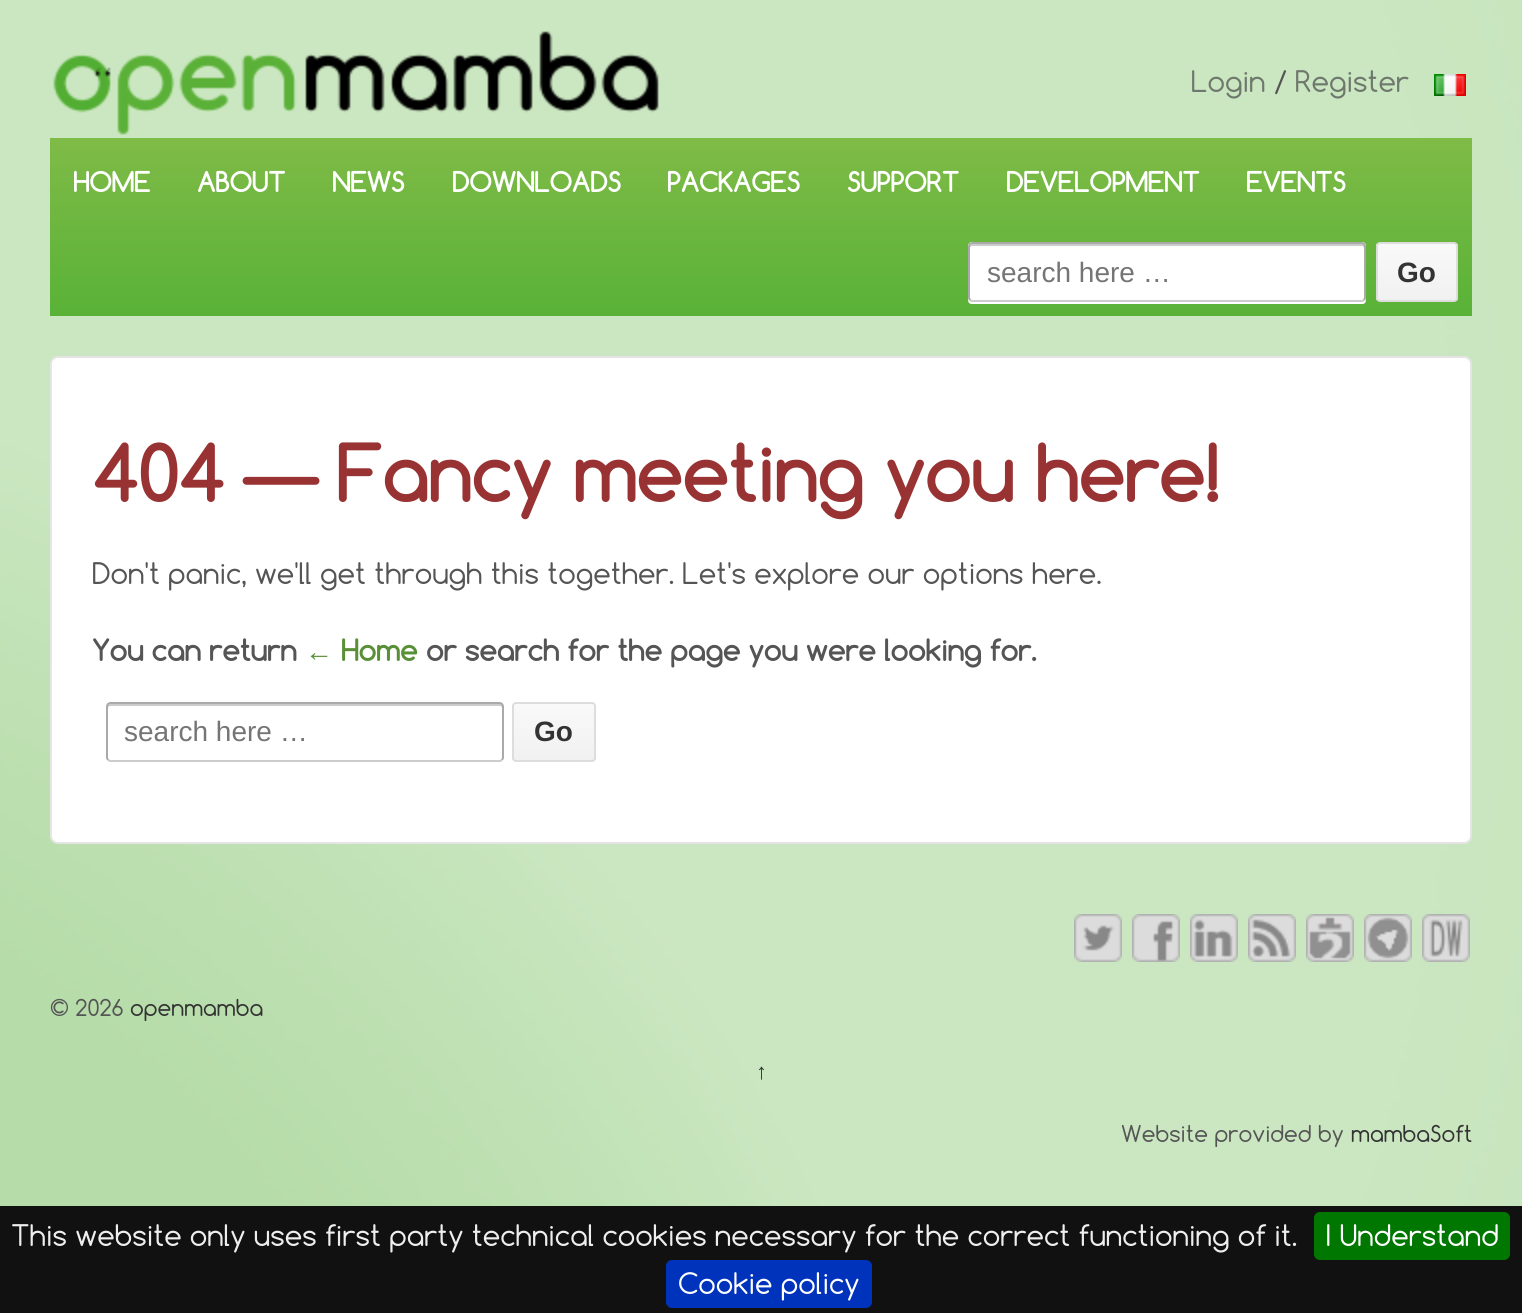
#include <cairo/cairo.h>
#include <math.h>
#include <stddef.h>

typedef struct { double x, y; const char *s; } line_t;
static cairo_t *cr;

static void rgb(unsigned color)
{
	cairo_set_source_rgb(cr, (color >> 16) / 255.0, (color >> 8 & 255) / 255.0, (color & 255) / 255.0);
}

static void rrect(double x, double y, double w, double h, double r)
{
	cairo_new_sub_path(cr);
	cairo_arc(cr, x + w - r, y + h - r, r, 0, M_PI / 2);
	cairo_arc(cr, x + r, y + h - r, r, M_PI / 2, M_PI);
	cairo_arc(cr, x + r, y + r, r, M_PI, 1.5 * M_PI);
	cairo_arc(cr, x + w - r, y + r, r, 1.5 * M_PI, 2 * M_PI);
	cairo_close_path(cr);
}

static void image(const char *path, double x, double y, double w, double h)
{
	cairo_surface_t *image = cairo_image_surface_create_from_png(path);
	cairo_save(cr);
	cairo_set_source_surface(cr, image, x, y);
	cairo_rectangle(cr, x, y, w, h);
	cairo_fill(cr);
	cairo_restore(cr);
	cairo_surface_destroy(image);
}

int main(void) {
	cairo_surface_t *surface = cairo_image_surface_create(CAIRO_FORMAT_RGB24, 1522, 1313);
	cr = cairo_create(surface);
	cairo_font_options_t *options = cairo_font_options_create();
	cairo_font_options_set_hint_metrics(options, CAIRO_HINT_METRICS_OFF);
	cairo_font_options_set_hint_style(options, CAIRO_HINT_STYLE_NONE);
	cairo_set_font_options(cr, options);
	cairo_set_miter_limit(cr, 4);
	cairo_pattern_t *gradient;
	rgb(0xffffff);
	cairo_paint(cr);
	image("img/1.png", 0, 0, 1522, 1206);
	image("img/2.png", 53, 31, 606, 104);
	image("img/3.png", 1434, 74, 32, 22);
	gradient = cairo_pattern_create_linear(761, 138, 761, 316);
	cairo_pattern_add_color_stop_rgba(gradient, 0, 0.498, 0.733, 0.278, 1);
	cairo_pattern_add_color_stop_rgba(gradient, 1, 0.349, 0.698, 0.216, 1);
	cairo_set_source(cr, gradient);
	cairo_pattern_destroy(gradient);
	cairo_rectangle(cr, 50, 138, 1422, 178);
	cairo_fill(cr);
	rgb(0xffffff);
	cairo_new_path(cr);
	cairo_move_to(cr, 968, 298);
	cairo_curve_to(cr, 968, 301, 968, 304, 972, 304);
	cairo_line_to(cr, 1362, 304);
	cairo_curve_to(cr, 1366, 304, 1366, 301, 1366, 298);
	cairo_curve_to(cr, 1366, 300, 1364, 302, 1362, 302);
	cairo_line_to(cr, 972, 302);
	cairo_curve_to(cr, 970, 302, 968, 300, 968, 298);
	cairo_close_path(cr);
	cairo_fill(cr);
	rrect(968, 242, 398, 60, 4);
	cairo_fill(cr);
	rgb(0xcccccc);
	cairo_new_path(cr);
	cairo_move_to(cr, 972, 246);
	cairo_line_to(cr, 1362, 246);
	cairo_curve_to(cr, 1363, 246, 1364, 247, 1364, 248);
	cairo_line_to(cr, 1364, 246);
	cairo_curve_to(cr, 1364, 245, 1363, 244, 1362, 244);
	cairo_line_to(cr, 972, 244);
	cairo_curve_to(cr, 971, 244, 970, 245, 970, 246);
	cairo_line_to(cr, 970, 248);
	cairo_curve_to(cr, 970, 247, 971, 246, 972, 246);
	cairo_close_path(cr);
	cairo_fill(cr);
	cairo_new_path(cr);
	cairo_move_to(cr, 1364, 300);
	cairo_line_to(cr, 1362, 301);
	cairo_line_to(cr, 972, 301);
	cairo_line_to(cr, 970, 300);
	cairo_stroke(cr);
	cairo_new_path(cr);
	cairo_move_to(cr, 970, 300);
	cairo_line_to(cr, 969, 298);
	cairo_line_to(cr, 969, 246);
	cairo_line_to(cr, 970, 244);
	cairo_line_to(cr, 972, 243);
	cairo_line_to(cr, 1362, 243);
	cairo_line_to(cr, 1364, 244);
	cairo_line_to(cr, 1365, 246);
	cairo_line_to(cr, 1365, 298);
	cairo_line_to(cr, 1364, 300);
	rgb(0xaaaaaa);
	cairo_stroke(cr);
	cairo_save(cr);
	rrect(1376, 242, 82, 60, 4);
	cairo_clip(cr);
	gradient = cairo_pattern_create_linear(1417, 244, 1417, 300);
	cairo_pattern_add_color_stop_rgba(gradient, 0, 0.976, 0.976, 0.976, 1);
	cairo_pattern_add_color_stop_rgba(gradient, 1, 0.945, 0.945, 0.945, 1);
	cairo_set_source(cr, gradient);
	cairo_pattern_destroy(gradient);
	cairo_rectangle(cr, 1376, 244, 82, 56);
	cairo_fill(cr);
	cairo_restore(cr);
	rrect(1377, 243, 80, 58, 3);
	rgb(0xdddddd);
	cairo_stroke(cr);
	rgb(0xffffff);
	rrect(51, 357, 1420, 486, 7);
	cairo_fill_preserve(cr);
	rgb(0xe5e5e5);
	cairo_stroke(cr);
	rgb(0xcccccc);
	cairo_new_path(cr);
	cairo_move_to(cr, 110, 706);
	cairo_line_to(cr, 500, 706);
	cairo_curve_to(cr, 501, 706, 502, 707, 502, 708);
	cairo_line_to(cr, 502, 706);
	cairo_curve_to(cr, 502, 705, 501, 704, 500, 704);
	cairo_line_to(cr, 110, 704);
	cairo_curve_to(cr, 109, 704, 108, 705, 108, 706);
	cairo_line_to(cr, 108, 708);
	cairo_curve_to(cr, 108, 707, 109, 706, 110, 706);
	cairo_close_path(cr);
	cairo_fill(cr);
	cairo_new_path(cr);
	cairo_move_to(cr, 502, 760);
	cairo_line_to(cr, 500, 761);
	cairo_line_to(cr, 110, 761);
	cairo_line_to(cr, 108, 760);
	cairo_stroke(cr);
	cairo_new_path(cr);
	cairo_move_to(cr, 108, 760);
	cairo_line_to(cr, 107, 758);
	cairo_line_to(cr, 107, 706);
	cairo_line_to(cr, 108, 704);
	cairo_line_to(cr, 110, 703);
	cairo_line_to(cr, 500, 703);
	cairo_line_to(cr, 502, 704);
	cairo_line_to(cr, 503, 706);
	cairo_line_to(cr, 503, 758);
	cairo_line_to(cr, 502, 760);
	rgb(0xaaaaaa);
	cairo_stroke(cr);
	cairo_save(cr);
	rrect(512, 702, 84, 60, 4);
	cairo_clip(cr);
	gradient = cairo_pattern_create_linear(554, 704, 554, 760);
	cairo_pattern_add_color_stop_rgba(gradient, 0, 0.976, 0.976, 0.976, 1);
	cairo_pattern_add_color_stop_rgba(gradient, 1, 0.945, 0.945, 0.945, 1);
	cairo_set_source(cr, gradient);
	cairo_pattern_destroy(gradient);
	cairo_rectangle(cr, 512, 704, 84, 56);
	cairo_fill(cr);
	cairo_restore(cr);
	rrect(513, 703, 82, 58, 3);
	rgb(0xdddddd);
	cairo_stroke(cr);
	image("img/4.png", 1074, 914, 48, 48);
	image("img/5.png", 1132, 914, 48, 48);
	image("img/6.png", 1190, 914, 48, 48);
	image("img/7.png", 1248, 914, 48, 48);
	image("img/8.png", 1306, 914, 48, 48);
	image("img/9.png", 1364, 914, 48, 48);
	image("img/10.png", 1422, 914, 48, 48);
	rgb(0x111111);
	cairo_rectangle(cr, 0, 1206, 1522, 107);
	cairo_fill(cr);
	rgb(0x007700);
	rrect(1314, 1212, 196, 48, 6);
	cairo_fill(cr);
	rgb(0x0033bb);
	rrect(666, 1260, 206, 48, 6);
	cairo_fill(cr);
	cairo_select_font_face(cr, "Comfortaa", CAIRO_FONT_SLANT_NORMAL, CAIRO_FONT_WEIGHT_NORMAL);
	cairo_set_font_size(cr, 28);
	rgb(0x6f786d);
	cairo_move_to(cr, 1191, 92);
	cairo_show_text(cr, "Login");
	rgb(0x555555);
	cairo_move_to(cr, 1274, 92);
	cairo_show_text(cr, "/");
	rgb(0x6f786d);
	cairo_move_to(cr, 1295, 92);
	cairo_show_text(cr, "Register");
	cairo_select_font_face(cr, "Comfortaa", CAIRO_FONT_SLANT_NORMAL, CAIRO_FONT_WEIGHT_BOLD);
	cairo_set_font_size(cr, 26);
	rgb(0xffffff);
	{
		static const line_t items[] = {
			{73, 192, "HOME"},
			{197, 192, "ABOUT"},
			{332, 192, "NEWS"},
			{452, 192, "DOWNLOADS"},
			{667, 192, "PACKAGES"},
			{847, 192, "SUPPORT"},
			{1006, 192, "DEVELOPMENT"},
			{1246, 192, "EVENTS"},
		};
		for (size_t i = 0; i < sizeof items / sizeof *items; i++) {
			cairo_move_to(cr, items[i].x, items[i].y);
			cairo_show_text(cr, items[i].s);
		}
	}
	cairo_select_font_face(cr, "Liberation Sans", CAIRO_FONT_SLANT_NORMAL, CAIRO_FONT_WEIGHT_NORMAL);
	cairo_set_font_size(cr, 28);
	rgb(0x757575);
	cairo_move_to(cr, 987, 282);
	cairo_show_text(cr, "search here …");
	cairo_select_font_face(cr, "Liberation Sans", CAIRO_FONT_SLANT_NORMAL, CAIRO_FONT_WEIGHT_BOLD);
	rgb(0x333333);
	cairo_move_to(cr, 1397, 282);
	cairo_show_text(cr, "Go");
	cairo_select_font_face(cr, "Comfortaa", CAIRO_FONT_SLANT_NORMAL, CAIRO_FONT_WEIGHT_BOLD);
	cairo_set_font_size(cr, 73.5);
	rgb(0x993333);
	cairo_move_to(cr, 92, 502);
	cairo_show_text(cr, "404 — Fancy meeting you here!");
	cairo_select_font_face(cr, "Comfortaa", CAIRO_FONT_SLANT_NORMAL, CAIRO_FONT_WEIGHT_NORMAL);
	cairo_set_font_size(cr, 28);
	rgb(0x555555);
	cairo_move_to(cr, 92, 584);
	cairo_show_text(cr, "Don't panic, we'll get through this together. Let's explore our options here.");
	cairo_select_font_face(cr, "Comfortaa", CAIRO_FONT_SLANT_NORMAL, CAIRO_FONT_WEIGHT_BOLD);
	cairo_move_to(cr, 92, 661);
	cairo_show_text(cr, "You can return");
	cairo_select_font_face(cr, "Liberation Sans", CAIRO_FONT_SLANT_NORMAL, CAIRO_FONT_WEIGHT_BOLD);
	rgb(0x599037);
	cairo_move_to(cr, 305, 661);
	cairo_show_text(cr, "←");
	cairo_select_font_face(cr, "Comfortaa", CAIRO_FONT_SLANT_NORMAL, CAIRO_FONT_WEIGHT_BOLD);
	cairo_move_to(cr, 341, 661);
	cairo_show_text(cr, "Home");
	rgb(0x555555);
	cairo_move_to(cr, 426, 661);
	cairo_show_text(cr, "or search for the page you were looking for.");
	cairo_select_font_face(cr, "Liberation Sans", CAIRO_FONT_SLANT_NORMAL, CAIRO_FONT_WEIGHT_NORMAL);
	rgb(0x757575);
	cairo_move_to(cr, 124, 741);
	cairo_show_text(cr, "search here …");
	cairo_select_font_face(cr, "Liberation Sans", CAIRO_FONT_SLANT_NORMAL, CAIRO_FONT_WEIGHT_BOLD);
	rgb(0x333333);
	cairo_move_to(cr, 534, 741);
	cairo_show_text(cr, "Go");
	cairo_select_font_face(cr, "Comfortaa", CAIRO_FONT_SLANT_NORMAL, CAIRO_FONT_WEIGHT_NORMAL);
	cairo_set_font_size(cr, 22);
	rgb(0x555555);
	cairo_move_to(cr, 50, 1016);
	cairo_show_text(cr, "© 2026");
	rgb(0x333333);
	cairo_move_to(cr, 130, 1016);
	cairo_show_text(cr, "openmamba");
	cairo_select_font_face(cr, "Liberation Sans", CAIRO_FONT_SLANT_NORMAL, CAIRO_FONT_WEIGHT_NORMAL);
	cairo_move_to(cr, 756, 1079);
	cairo_show_text(cr, "↑");
	cairo_select_font_face(cr, "Comfortaa", CAIRO_FONT_SLANT_NORMAL, CAIRO_FONT_WEIGHT_NORMAL);
	rgb(0x555555);
	cairo_move_to(cr, 1121, 1142);
	cairo_show_text(cr, "Website provided by");
	rgb(0x333333);
	cairo_move_to(cr, 1351, 1142);
	cairo_show_text(cr, "mambaSoft");
	cairo_set_font_size(cr, 28);
	rgb(0xeeeeee);
	cairo_move_to(cr, 11, 1246);
	cairo_show_text(cr, "This website only uses first party technical cookies necessary for the correct functioning of it.");
	rgb(0xffffff);
	cairo_move_to(cr, 1325, 1246);
	cairo_show_text(cr, "I Understand");
	cairo_move_to(cr, 678, 1294);
	cairo_show_text(cr, "Cookie policy");
	cairo_surface_write_to_png(surface, "page.png");
	cairo_font_options_destroy(options);
	cairo_destroy(cr);
	cairo_surface_destroy(surface);
	return 0;
}
